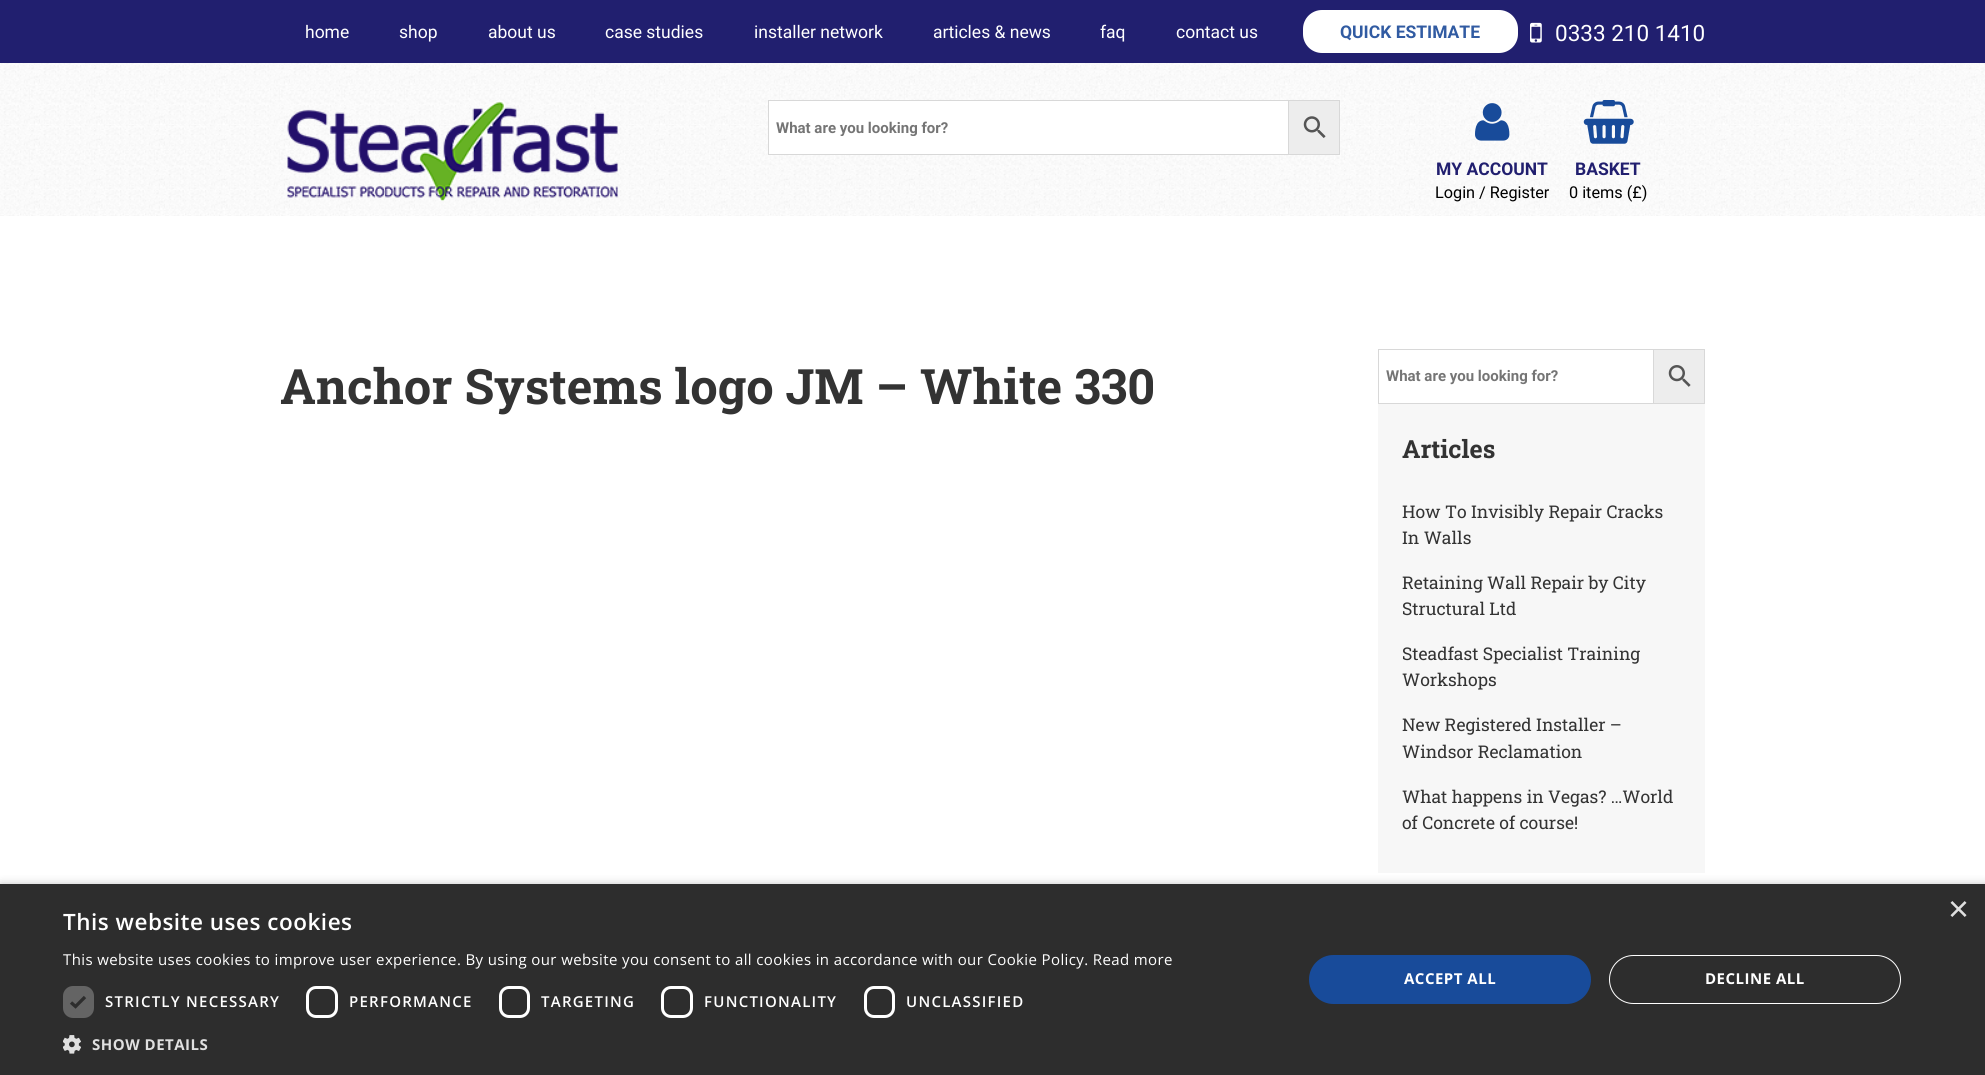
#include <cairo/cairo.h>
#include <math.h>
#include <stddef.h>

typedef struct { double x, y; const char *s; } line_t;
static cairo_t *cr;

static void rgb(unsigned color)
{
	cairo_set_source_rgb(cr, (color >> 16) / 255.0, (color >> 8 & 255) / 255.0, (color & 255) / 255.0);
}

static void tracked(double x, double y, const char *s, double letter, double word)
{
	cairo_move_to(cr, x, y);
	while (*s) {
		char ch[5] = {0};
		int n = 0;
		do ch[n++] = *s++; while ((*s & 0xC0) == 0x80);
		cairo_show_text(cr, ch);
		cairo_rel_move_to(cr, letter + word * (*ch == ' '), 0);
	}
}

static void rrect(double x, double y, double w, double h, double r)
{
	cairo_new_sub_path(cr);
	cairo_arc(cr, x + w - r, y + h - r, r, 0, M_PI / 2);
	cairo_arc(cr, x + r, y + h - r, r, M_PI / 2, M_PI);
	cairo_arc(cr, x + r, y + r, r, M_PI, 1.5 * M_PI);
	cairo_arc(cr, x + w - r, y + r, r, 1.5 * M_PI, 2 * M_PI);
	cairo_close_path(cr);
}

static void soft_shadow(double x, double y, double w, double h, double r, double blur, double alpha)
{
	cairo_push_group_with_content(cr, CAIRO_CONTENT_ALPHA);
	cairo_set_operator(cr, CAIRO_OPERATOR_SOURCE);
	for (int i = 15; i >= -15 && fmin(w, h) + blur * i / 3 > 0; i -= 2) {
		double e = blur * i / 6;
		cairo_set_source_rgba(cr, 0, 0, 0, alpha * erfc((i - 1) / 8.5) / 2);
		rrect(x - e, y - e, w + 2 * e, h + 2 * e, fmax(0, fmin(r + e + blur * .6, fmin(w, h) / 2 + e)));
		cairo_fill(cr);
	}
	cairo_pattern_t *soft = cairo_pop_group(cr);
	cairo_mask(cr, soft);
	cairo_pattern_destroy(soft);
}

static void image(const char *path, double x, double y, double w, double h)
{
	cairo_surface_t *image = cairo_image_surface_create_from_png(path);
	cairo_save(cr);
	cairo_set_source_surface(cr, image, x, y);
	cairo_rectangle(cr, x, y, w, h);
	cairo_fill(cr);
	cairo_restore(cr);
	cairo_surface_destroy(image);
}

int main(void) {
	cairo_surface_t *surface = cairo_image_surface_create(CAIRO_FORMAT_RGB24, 1985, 1075);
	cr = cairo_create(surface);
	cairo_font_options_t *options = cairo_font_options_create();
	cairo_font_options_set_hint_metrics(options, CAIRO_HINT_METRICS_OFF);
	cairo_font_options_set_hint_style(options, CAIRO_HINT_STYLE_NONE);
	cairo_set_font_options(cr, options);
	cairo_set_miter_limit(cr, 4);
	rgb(0xffffff);
	cairo_paint(cr);
	rgb(0x211f6f);
	cairo_rectangle(cr, 0, 0, 1985, 63);
	cairo_fill(cr);
	rgb(0xffffff);
	rrect(1303, 10, 215, 43, 19);
	cairo_fill(cr);
	image("img/1.png", 1530, 22, 12, 21);
	image("img/2.png", 0, 63, 1985, 153);
	image("img/3.png", 287, 100, 331, 101);
	rgb(0xededed);
	cairo_rectangle(cr, 1288.5, 100.5, 51, 54);
	cairo_fill_preserve(cr);
	rgb(0xd8d8d8);
	cairo_set_line_width(cr, 1);
	cairo_stroke(cr);
	rgb(0xffffff);
	cairo_rectangle(cr, 768.5, 100.5, 520, 54);
	cairo_fill_preserve(cr);
	rgb(0xd8d8d8);
	cairo_stroke(cr);
	image("img/4.png", 1303, 116, 23, 22);
	image("img/5.png", 1475, 103, 35, 38);
	image("img/6.png", 1583, 100, 51, 44);
	rgb(0xededed);
	cairo_rectangle(cr, 1653.5, 349.5, 51, 54);
	cairo_fill_preserve(cr);
	rgb(0xd8d8d8);
	cairo_stroke(cr);
	cairo_rectangle(cr, 1378.5, 349.5, 275, 54);
	cairo_stroke(cr);
	image("img/7.png", 1668, 365, 23, 22);
	rgb(0xf7f7f7);
	cairo_rectangle(cr, 1378, 404, 327, 469);
	cairo_fill(cr);
	rgb(0x000000);
	soft_shadow(1, 886, 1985, 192, 0, 5, 0.35);
	rgb(0x2d2d2d);
	cairo_rectangle(cr, 0, 884, 1985, 191);
	cairo_fill(cr);
	rgb(0x646464);
	rrect(63, 986, 31, 32, 10);
	cairo_fill(cr);
	cairo_new_path(cr);
	cairo_move_to(cr, 71, 1002.5);
	cairo_line_to(cr, 75.5, 1006.5);
	cairo_line_to(cr, 85, 997);
	rgb(0x2d2d2d);
	cairo_set_line_width(cr, 3.3);
	cairo_stroke(cr);
	rrect(307.5, 987.5, 29, 29, 8.5);
	rgb(0xffffff);
	cairo_set_line_width(cr, 3);
	cairo_stroke(cr);
	rrect(500.5, 987.5, 28, 29, 8.5);
	cairo_stroke(cr);
	rrect(662.5, 987.5, 29, 29, 8.5);
	cairo_stroke(cr);
	rrect(865.5, 987.5, 28, 29, 8.5);
	cairo_stroke(cr);
	image("img/8.png", 63, 1035, 18, 19);
	rgb(0x184b9a);
	rrect(1309, 955, 282, 49, 24.5);
	cairo_fill(cr);
	rrect(1609.5, 955.5, 291, 48, 24);
	rgb(0xffffff);
	cairo_set_line_width(cr, 1);
	cairo_stroke(cr);
	cairo_select_font_face(cr, "Roboto", CAIRO_FONT_SLANT_NORMAL, CAIRO_FONT_WEIGHT_NORMAL);
	cairo_set_font_size(cr, 17.5);
	{
		static const line_t items[] = {
			{305, 38, "home"},
			{399, 38, "shop"},
			{488, 38, "about us"},
			{605, 38, "case studies"},
			{754, 38, "installer network"},
			{933, 38, "articles & news"},
			{1100, 38, "faq"},
			{1176, 38, "contact us"},
		};
		for (size_t i = 0; i < sizeof items / sizeof *items; i++) {
			cairo_move_to(cr, items[i].x, items[i].y);
			cairo_show_text(cr, items[i].s);
		}
	}
	cairo_select_font_face(cr, "Roboto", CAIRO_FONT_SLANT_NORMAL, CAIRO_FONT_WEIGHT_BOLD);
	rgb(0x315ba2);
	cairo_move_to(cr, 1340, 38);
	cairo_show_text(cr, "QUICK ESTIMATE");
	cairo_select_font_face(cr, "Roboto", CAIRO_FONT_SLANT_NORMAL, CAIRO_FONT_WEIGHT_NORMAL);
	cairo_set_font_size(cr, 22.5);
	rgb(0xffffff);
	cairo_move_to(cr, 1555, 41);
	cairo_show_text(cr, "0333 210 1410");
	cairo_save(cr);
	cairo_rectangle(cr, 776, 119, 462, 17);
	cairo_clip(cr);
	cairo_select_font_face(cr, "Roboto", CAIRO_FONT_SLANT_NORMAL, CAIRO_FONT_WEIGHT_BOLD);
	cairo_set_font_size(cr, 15);
	rgb(0x757575);
	cairo_move_to(cr, 776, 133);
	cairo_show_text(cr, "What are you looking for?");
	cairo_restore(cr);
	cairo_select_font_face(cr, "Roboto", CAIRO_FONT_SLANT_NORMAL, CAIRO_FONT_WEIGHT_BOLD);
	cairo_set_font_size(cr, 17.5);
	rgb(0x211f6f);
	cairo_move_to(cr, 1436, 175);
	cairo_show_text(cr, "MY ACCOUNT");
	cairo_select_font_face(cr, "Roboto", CAIRO_FONT_SLANT_NORMAL, CAIRO_FONT_WEIGHT_NORMAL);
	cairo_set_font_size(cr, 16.25);
	rgb(0x000000);
	cairo_move_to(cr, 1435, 198);
	cairo_show_text(cr, "Login / Register");
	cairo_select_font_face(cr, "Roboto", CAIRO_FONT_SLANT_NORMAL, CAIRO_FONT_WEIGHT_BOLD);
	cairo_set_font_size(cr, 17.5);
	rgb(0x211f6f);
	cairo_move_to(cr, 1575, 175);
	cairo_show_text(cr, "BASKET");
	cairo_select_font_face(cr, "Roboto", CAIRO_FONT_SLANT_NORMAL, CAIRO_FONT_WEIGHT_NORMAL);
	cairo_set_font_size(cr, 16.25);
	rgb(0x000000);
	cairo_move_to(cr, 1569, 198);
	cairo_show_text(cr, "0 items (£)");
	cairo_select_font_face(cr, "Roboto Slab", CAIRO_FONT_SLANT_NORMAL, CAIRO_FONT_WEIGHT_BOLD);
	cairo_set_font_size(cr, 48.75);
	rgb(0x333333);
	cairo_move_to(cr, 280, 404);
	cairo_show_text(cr, "Anchor Systems logo JM – White 330");
	cairo_select_font_face(cr, "Roboto", CAIRO_FONT_SLANT_NORMAL, CAIRO_FONT_WEIGHT_BOLD);
	cairo_set_font_size(cr, 15);
	rgb(0x757575);
	cairo_move_to(cr, 1386, 381);
	cairo_show_text(cr, "What are you looking for?");
	cairo_select_font_face(cr, "Roboto Slab", CAIRO_FONT_SLANT_NORMAL, CAIRO_FONT_WEIGHT_BOLD);
	cairo_set_font_size(cr, 25);
	rgb(0x333333);
	cairo_move_to(cr, 1402, 458);
	cairo_show_text(cr, "Articles");
	cairo_select_font_face(cr, "Roboto Slab", CAIRO_FONT_SLANT_NORMAL, CAIRO_FONT_WEIGHT_NORMAL);
	cairo_set_font_size(cr, 17.5);
	{
		static const line_t items[] = {
			{1402, 518, "How To Invisibly Repair Cracks"},
			{1402, 544, "In Walls"},
			{1402, 589, "Retaining Wall Repair by City"},
			{1402, 615, "Structural Ltd"},
			{1402, 660, "Steadfast Specialist Training"},
			{1402, 686, "Workshops"},
			{1402, 731, "New Registered Installer –"},
			{1402, 758, "Windsor Reclamation"},
			{1402, 803, "What happens in Vegas? …World"},
			{1402, 829, "of Concrete of course!"},
		};
		for (size_t i = 0; i < sizeof items / sizeof *items; i++) {
			cairo_move_to(cr, items[i].x, items[i].y);
			cairo_show_text(cr, items[i].s);
		}
	}
	cairo_select_font_face(cr, "Liberation Sans", CAIRO_FONT_SLANT_NORMAL, CAIRO_FONT_WEIGHT_NORMAL);
	cairo_set_font_size(cr, 36);
	rgb(0xe0e0e0);
	cairo_move_to(cr, 1948, 921);
	cairo_show_text(cr, "×");
	cairo_select_font_face(cr, "Open Sans SemiBold", CAIRO_FONT_SLANT_NORMAL, CAIRO_FONT_WEIGHT_NORMAL);
	cairo_set_font_size(cr, 22.5);
	rgb(0xffffff);
	tracked(63, 930, "This website uses cookies", 0.5, 0);
	cairo_select_font_face(cr, "Open Sans", CAIRO_FONT_SLANT_NORMAL, CAIRO_FONT_WEIGHT_NORMAL);
	cairo_set_font_size(cr, 15);
	tracked(63, 965, "This website uses cookies to improve user experience. By using our website you consent to all cookies in accordance with our Cookie Policy. Read more", 0.38, 0);
	cairo_select_font_face(cr, "Open Sans SemiBold", CAIRO_FONT_SLANT_NORMAL, CAIRO_FONT_WEIGHT_NORMAL);
	{
		static const line_t items[] = {
			{105, 1007, "STRICTLY NECESSARY"},
			{349, 1007, "PERFORMANCE"},
			{541, 1007, "TARGETING"},
			{704, 1007, "FUNCTIONALITY"},
			{906, 1007, "UNCLASSIFIED"},
		};
		for (size_t i = 0; i < sizeof items / sizeof *items; i++) {
			tracked(items[i].x, items[i].y, items[i].s, 1.25, 0);
		}
	}
	cairo_select_font_face(cr, "Open Sans", CAIRO_FONT_SLANT_NORMAL, CAIRO_FONT_WEIGHT_BOLD);
	rgb(0xe0e0e0);
	tracked(92, 1050, "SHOW DETAILS", 0.5, 0);
	rgb(0xffffff);
	tracked(1404, 984, "ACCEPT ALL", 0.5, 0);
	tracked(1705, 984, "DECLINE ALL", 0.5, 0);
	cairo_surface_write_to_png(surface, "page.png");
	cairo_font_options_destroy(options);
	cairo_destroy(cr);
	cairo_surface_destroy(surface);
	return 0;
}
